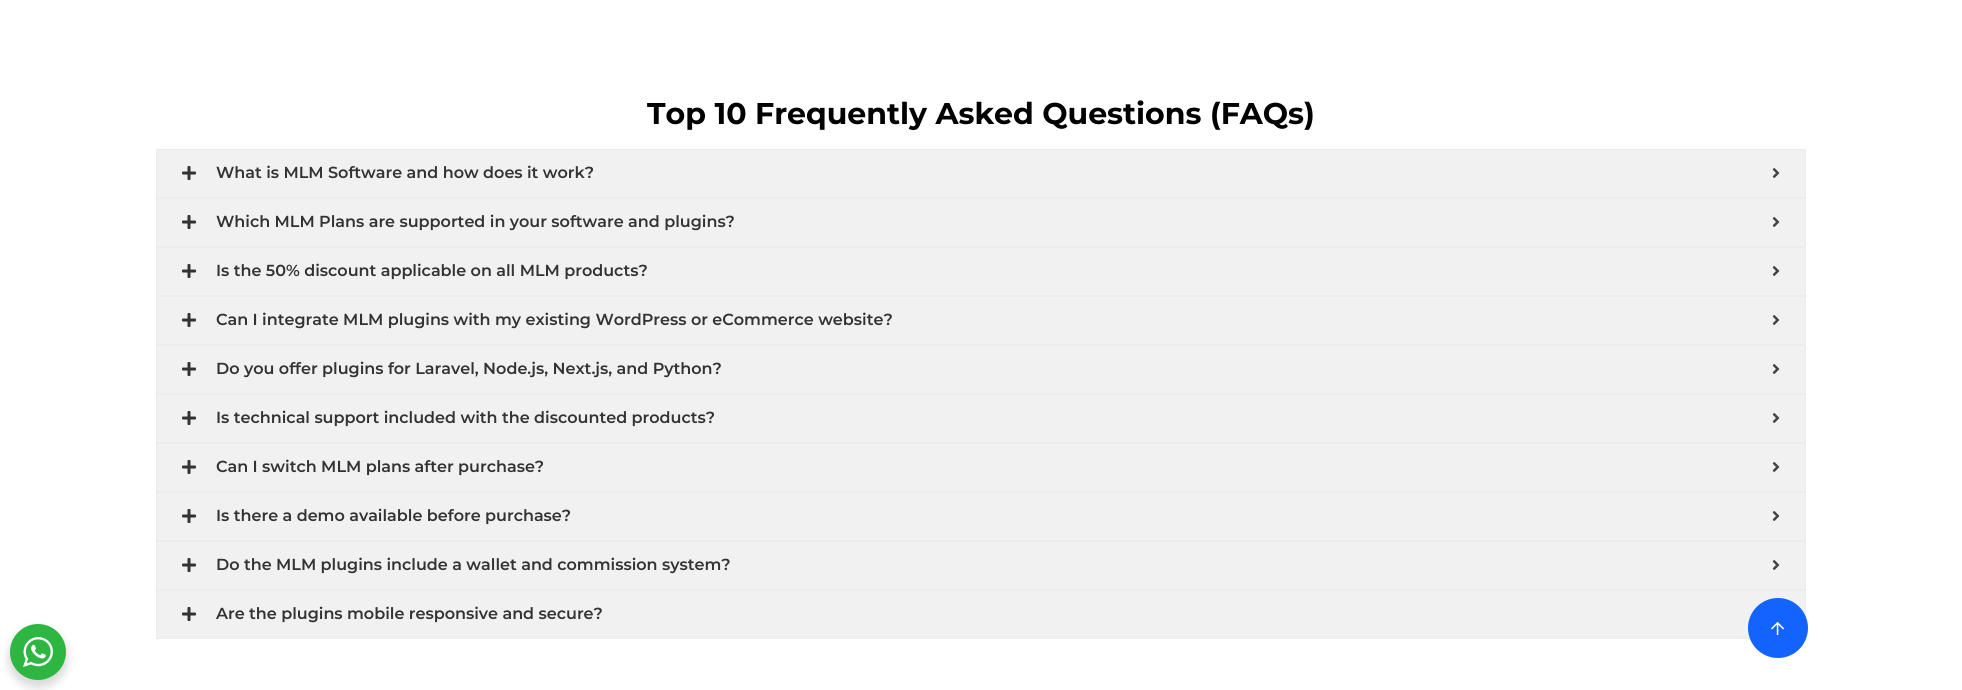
#include <cairo/cairo.h>
#include <math.h>
#include <stddef.h>

typedef struct { double x, y; const char *s; } line_t;
static cairo_t *cr;

static void rgb(unsigned color)
{
	cairo_set_source_rgb(cr, (color >> 16) / 255.0, (color >> 8 & 255) / 255.0, (color & 255) / 255.0);
}

static void rrect(double x, double y, double w, double h, double r)
{
	cairo_new_sub_path(cr);
	cairo_arc(cr, x + w - r, y + h - r, r, 0, M_PI / 2);
	cairo_arc(cr, x + r, y + h - r, r, M_PI / 2, M_PI);
	cairo_arc(cr, x + r, y + r, r, M_PI, 1.5 * M_PI);
	cairo_arc(cr, x + w - r, y + r, r, 1.5 * M_PI, 2 * M_PI);
	cairo_close_path(cr);
}

static void soft_shadow(double x, double y, double w, double h, double r, double blur, double alpha)
{
	cairo_push_group_with_content(cr, CAIRO_CONTENT_ALPHA);
	cairo_set_operator(cr, CAIRO_OPERATOR_SOURCE);
	for (int i = 15; i >= -15 && fmin(w, h) + blur * i / 3 > 0; i -= 2) {
		double e = blur * i / 6;
		cairo_set_source_rgba(cr, 0, 0, 0, alpha * erfc((i - 1) / 8.5) / 2);
		rrect(x - e, y - e, w + 2 * e, h + 2 * e, fmax(0, fmin(r + e + blur * .6, fmin(w, h) / 2 + e)));
		cairo_fill(cr);
	}
	cairo_pattern_t *soft = cairo_pop_group(cr);
	cairo_mask(cr, soft);
	cairo_pattern_destroy(soft);
}

static void image(const char *path, double x, double y, double w, double h)
{
	cairo_surface_t *image = cairo_image_surface_create_from_png(path);
	cairo_save(cr);
	cairo_set_source_surface(cr, image, x, y);
	cairo_rectangle(cr, x, y, w, h);
	cairo_fill(cr);
	cairo_restore(cr);
	cairo_surface_destroy(image);
}

int main(void) {
	cairo_surface_t *surface = cairo_image_surface_create(CAIRO_FORMAT_RGB24, 1962, 690);
	cr = cairo_create(surface);
	cairo_font_options_t *options = cairo_font_options_create();
	cairo_font_options_set_hint_metrics(options, CAIRO_HINT_METRICS_OFF);
	cairo_font_options_set_hint_style(options, CAIRO_HINT_STYLE_NONE);
	cairo_set_font_options(cr, options);
	cairo_set_miter_limit(cr, 4);
	rgb(0xffffff);
	cairo_paint(cr);
	rgb(0x000000);
	soft_shadow(8, 628, 60, 60, 30, 4, 0.14);
	rgb(0x2db742);
	cairo_arc(cr, 38, 652, 28, 0, 2 * M_PI);
	cairo_fill(cr);
	image("img/1.png", 23, 637, 30, 30);
	rgb(0xf1f1f1);
	cairo_rectangle(cr, 156.5, 149.5, 1649, 48);
	cairo_fill_preserve(cr);
	rgb(0xececec);
	cairo_set_line_width(cr, 1);
	cairo_stroke(cr);
	image("img/2.png", 182, 166, 14, 14);
	image("img/3.png", 1772, 168, 8, 10);
	rgb(0xf1f1f1);
	cairo_rectangle(cr, 156.5, 198.5, 1649, 48);
	cairo_fill_preserve(cr);
	rgb(0xececec);
	cairo_stroke(cr);
	image("img/2.png", 182, 215, 14, 14);
	image("img/3.png", 1772, 217, 8, 10);
	rgb(0xf1f1f1);
	cairo_rectangle(cr, 156.5, 247.5, 1649, 48);
	cairo_fill_preserve(cr);
	rgb(0xececec);
	cairo_stroke(cr);
	image("img/2.png", 182, 264, 14, 14);
	image("img/3.png", 1772, 266, 8, 10);
	rgb(0xf1f1f1);
	cairo_rectangle(cr, 156.5, 296.5, 1649, 48);
	cairo_fill_preserve(cr);
	rgb(0xececec);
	cairo_stroke(cr);
	image("img/2.png", 182, 313, 14, 14);
	image("img/3.png", 1772, 315, 8, 10);
	rgb(0xf1f1f1);
	cairo_rectangle(cr, 156.5, 345.5, 1649, 48);
	cairo_fill_preserve(cr);
	rgb(0xececec);
	cairo_stroke(cr);
	image("img/2.png", 182, 362, 14, 14);
	image("img/3.png", 1772, 364, 8, 10);
	rgb(0xf1f1f1);
	cairo_rectangle(cr, 156.5, 394.5, 1649, 48);
	cairo_fill_preserve(cr);
	rgb(0xececec);
	cairo_stroke(cr);
	image("img/2.png", 182, 411, 14, 14);
	image("img/3.png", 1772, 413, 8, 10);
	rgb(0xf1f1f1);
	cairo_rectangle(cr, 156.5, 443.5, 1649, 48);
	cairo_fill_preserve(cr);
	rgb(0xececec);
	cairo_stroke(cr);
	image("img/2.png", 182, 460, 14, 14);
	image("img/3.png", 1772, 462, 8, 10);
	rgb(0xf1f1f1);
	cairo_rectangle(cr, 156.5, 492.5, 1649, 48);
	cairo_fill_preserve(cr);
	rgb(0xececec);
	cairo_stroke(cr);
	image("img/2.png", 182, 509, 14, 14);
	image("img/3.png", 1772, 511, 8, 10);
	rgb(0xf1f1f1);
	cairo_rectangle(cr, 156.5, 541.5, 1649, 48);
	cairo_fill_preserve(cr);
	rgb(0xececec);
	cairo_stroke(cr);
	image("img/2.png", 182, 558, 14, 14);
	image("img/3.png", 1772, 560, 8, 10);
	rgb(0xf1f1f1);
	cairo_rectangle(cr, 156.5, 590.5, 1649, 48);
	cairo_fill_preserve(cr);
	rgb(0xececec);
	cairo_stroke(cr);
	image("img/2.png", 182, 607, 14, 14);
	rgb(0x1364ff);
	cairo_arc(cr, 1778, 628, 30, 0, 2 * M_PI);
	cairo_fill(cr);
	image("img/4.png", 1771, 622, 13, 14);
	cairo_select_font_face(cr, "Montserrat", CAIRO_FONT_SLANT_NORMAL, CAIRO_FONT_WEIGHT_BOLD);
	cairo_set_font_size(cr, 30);
	rgb(0x000000);
	cairo_move_to(cr, 647, 124);
	cairo_show_text(cr, "Top 10 Frequently Asked Questions (FAQs)");
	cairo_select_font_face(cr, "Montserrat SemiBold", CAIRO_FONT_SLANT_NORMAL, CAIRO_FONT_WEIGHT_NORMAL);
	cairo_set_font_size(cr, 16);
	rgb(0x333333);
	{
		static const line_t items[] = {
			{216, 178, "What is MLM Software and how does it work?"},
			{216, 227, "Which MLM Plans are supported in your software and plugins?"},
			{216, 276, "Is the 50% discount applicable on all MLM products?"},
			{216, 325, "Can I integrate MLM plugins with my existing WordPress or eCommerce website?"},
			{216, 374, "Do you offer plugins for Laravel, Node.js, Next.js, and Python?"},
			{216, 423, "Is technical support included with the discounted products?"},
			{216, 472, "Can I switch MLM plans after purchase?"},
			{216, 521, "Is there a demo available before purchase?"},
			{216, 570, "Do the MLM plugins include a wallet and commission system?"},
			{216, 619, "Are the plugins mobile responsive and secure?"},
		};
		for (size_t i = 0; i < sizeof items / sizeof *items; i++) {
			cairo_move_to(cr, items[i].x, items[i].y);
			cairo_show_text(cr, items[i].s);
		}
	}
	cairo_surface_write_to_png(surface, "page.png");
	cairo_font_options_destroy(options);
	cairo_destroy(cr);
	cairo_surface_destroy(surface);
	return 0;
}
